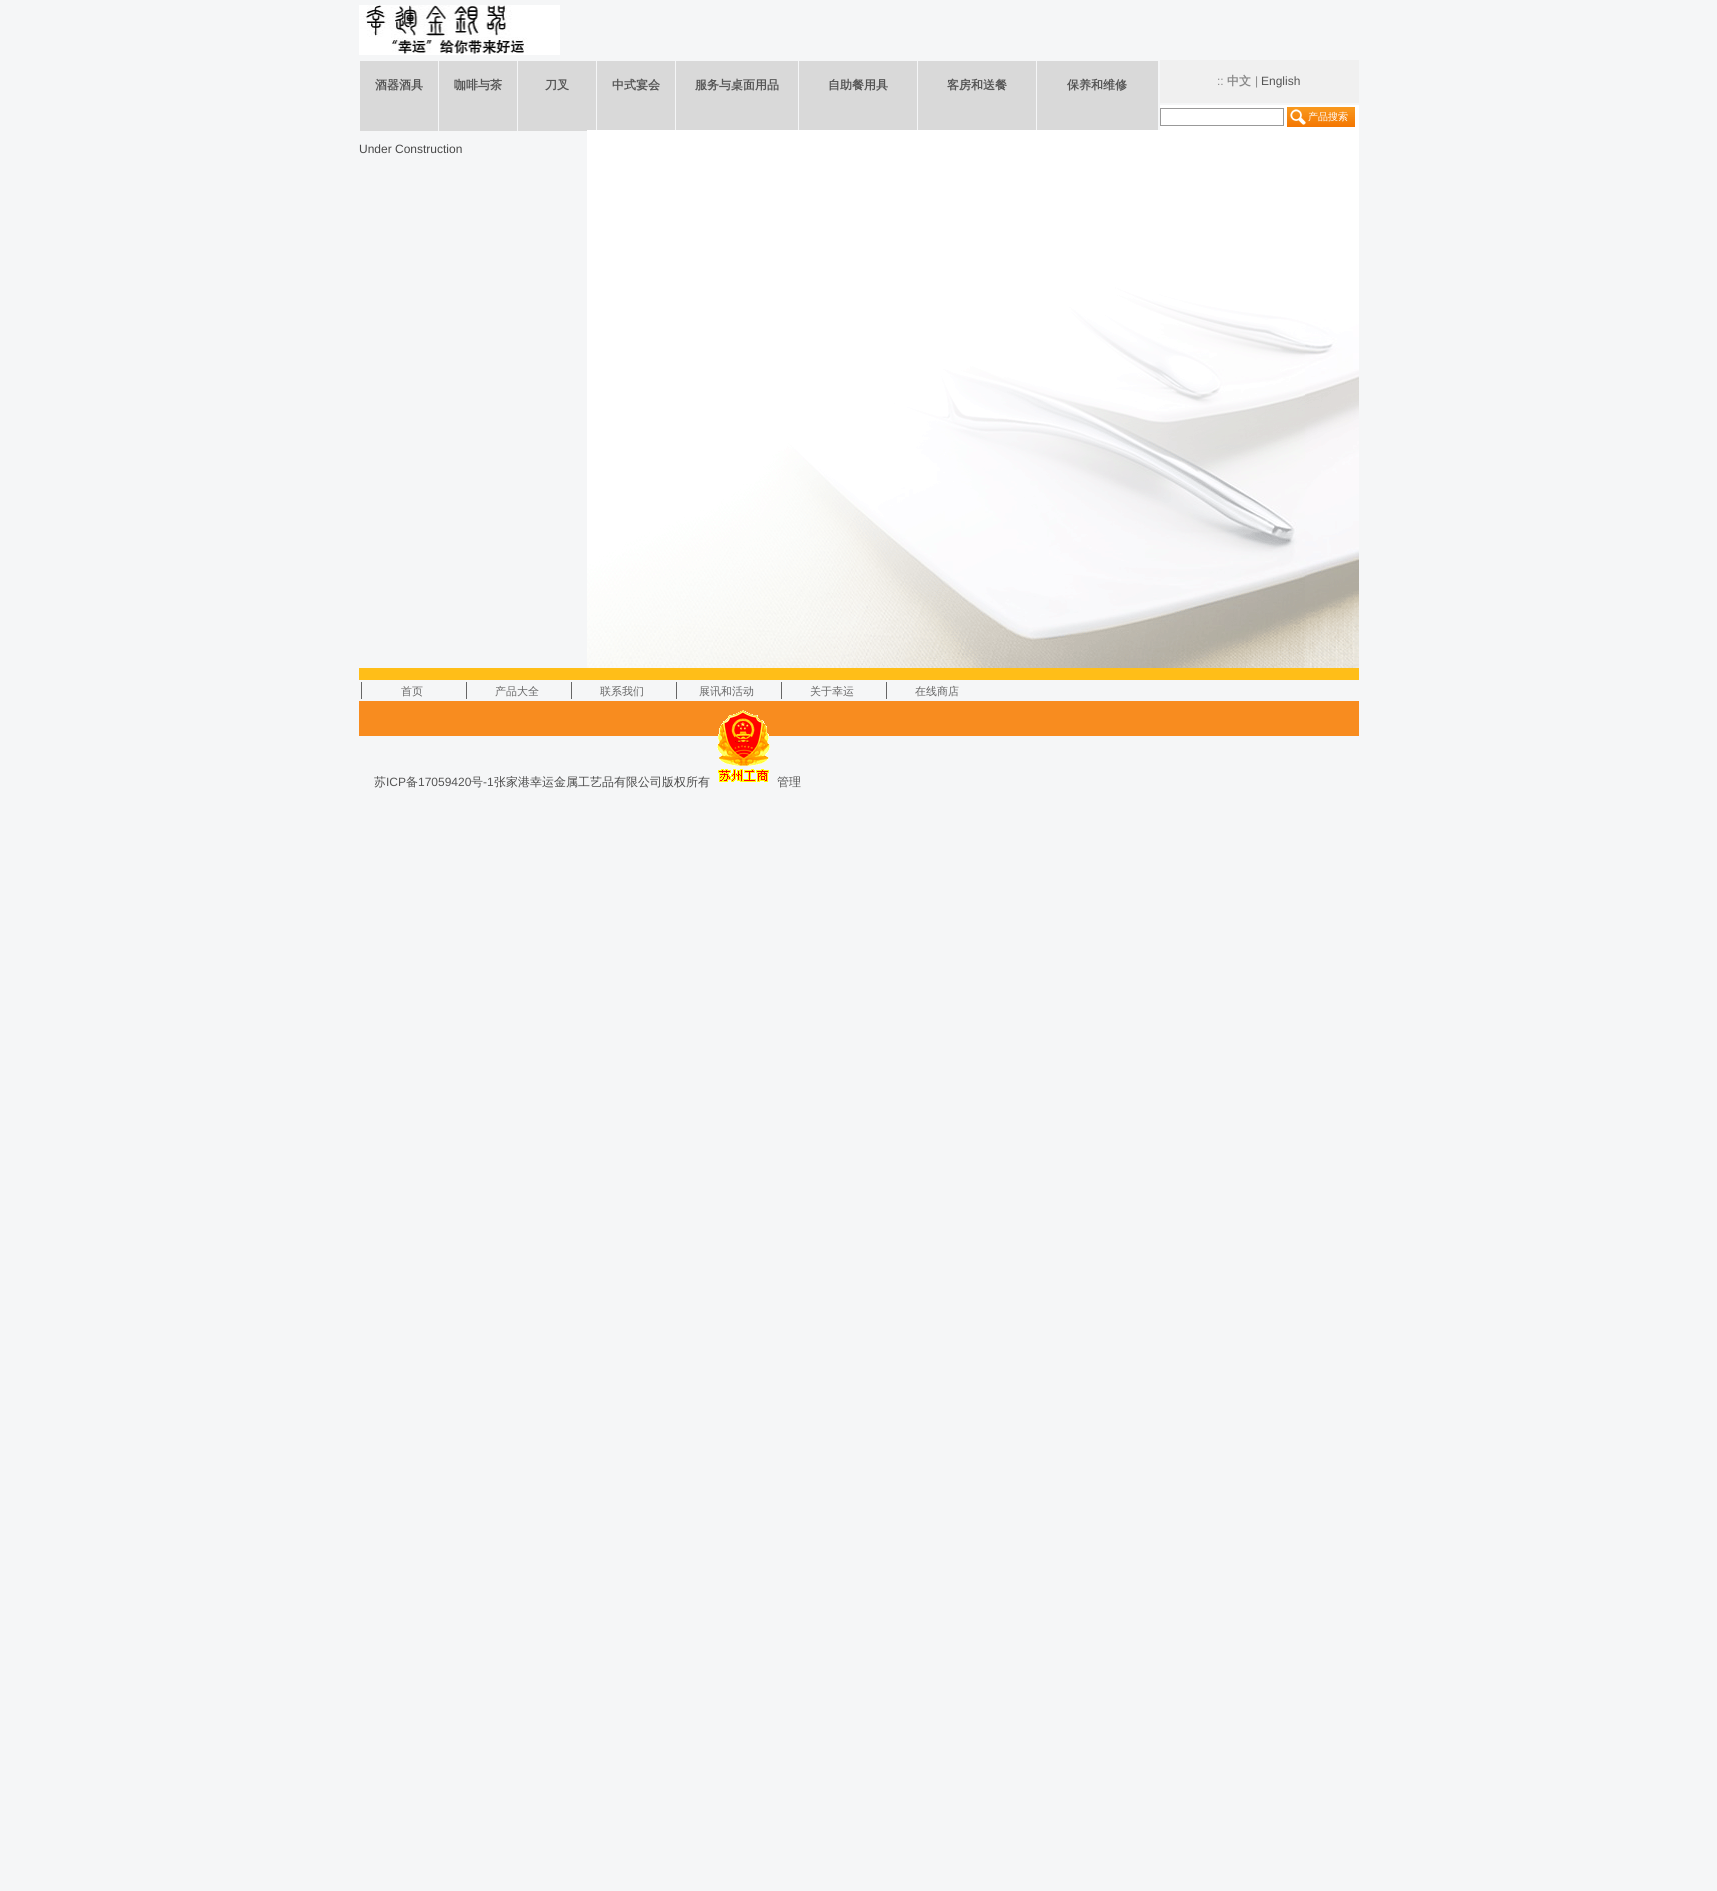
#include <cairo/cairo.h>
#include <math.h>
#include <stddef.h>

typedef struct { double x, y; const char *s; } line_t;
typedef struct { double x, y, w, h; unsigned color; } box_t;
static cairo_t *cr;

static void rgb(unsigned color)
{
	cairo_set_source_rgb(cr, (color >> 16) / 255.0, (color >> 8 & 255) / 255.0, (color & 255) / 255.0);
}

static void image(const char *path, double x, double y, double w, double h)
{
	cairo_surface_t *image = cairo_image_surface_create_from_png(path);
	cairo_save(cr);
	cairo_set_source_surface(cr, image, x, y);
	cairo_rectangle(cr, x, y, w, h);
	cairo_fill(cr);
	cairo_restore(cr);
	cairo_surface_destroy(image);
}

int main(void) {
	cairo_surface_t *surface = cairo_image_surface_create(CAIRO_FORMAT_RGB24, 1717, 1891);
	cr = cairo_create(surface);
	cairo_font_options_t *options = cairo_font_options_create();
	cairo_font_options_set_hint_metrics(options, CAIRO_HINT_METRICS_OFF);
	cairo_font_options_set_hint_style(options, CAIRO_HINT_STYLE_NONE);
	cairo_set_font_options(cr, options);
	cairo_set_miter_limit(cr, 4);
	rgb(0xf5f6f7);
	cairo_paint(cr);
	image("img/1.png", 359, 5, 201, 50);
	{
		static const box_t items[] = {
			{360, 61, 78, 70, 0xd9d9d9},
			{439, 61, 78, 70, 0xd9d9d9},
			{518, 61, 78, 70, 0xd9d9d9},
			{597, 61, 78, 69, 0xd9d9d9},
			{676, 61, 122, 69, 0xd9d9d9},
			{799, 61, 118, 69, 0xd9d9d9},
			{918, 61, 118, 69, 0xd9d9d9},
			{1037, 61, 121, 69, 0xd9d9d9},
			{1160, 60, 199, 43, 0xf0f0f0},
			{1160, 105, 199, 25, 0xffffff},
		};
		for (size_t i = 0; i < sizeof items / sizeof *items; i++) {
			rgb(items[i].color);
			cairo_rectangle(cr, items[i].x, items[i].y, items[i].w, items[i].h);
			cairo_fill(cr);
		}
	}
	cairo_rectangle(cr, 1160.5, 108.5, 123, 17);
	rgb(0x999999);
	cairo_set_line_width(cr, 1);
	cairo_stroke(cr);
	image("img/2.png", 1287, 107, 68, 20);
	image("img/3.png", 587, 130, 772, 538);
	{
		static const box_t items[] = {
			{359, 668, 1000, 12, 0xffbe18},
			{361, 682, 1, 17, 0x666666},
			{466, 682, 1, 17, 0x666666},
			{571, 682, 1, 17, 0x666666},
			{676, 682, 1, 17, 0x666666},
			{781, 682, 1, 17, 0x666666},
			{886, 682, 1, 17, 0x666666},
			{359, 701, 1000, 35, 0xf88c1f},
		};
		for (size_t i = 0; i < sizeof items / sizeof *items; i++) {
			rgb(items[i].color);
			cairo_rectangle(cr, items[i].x, items[i].y, items[i].w, items[i].h);
			cairo_fill(cr);
		}
	}
	image("img/4.png", 717, 710, 53, 72);
	cairo_select_font_face(cr, "WenQuanYi Zen Hei", CAIRO_FONT_SLANT_NORMAL, CAIRO_FONT_WEIGHT_BOLD);
	cairo_set_font_size(cr, 12);
	rgb(0x555555);
	{
		static const line_t items[] = {
			{375, 89, "酒器酒具"},
			{454, 89, "咖啡与茶"},
			{545, 89, "刀叉"},
			{612, 89, "中式宴会"},
			{695, 89, "服务与桌面用品"},
			{828, 89, "自助餐用具"},
			{947, 89, "客房和送餐"},
			{1067, 89, "保养和维修"},
		};
		for (size_t i = 0; i < sizeof items / sizeof *items; i++) {
			cairo_move_to(cr, items[i].x, items[i].y);
			cairo_show_text(cr, items[i].s);
		}
	}
	cairo_select_font_face(cr, "Liberation Sans", CAIRO_FONT_SLANT_NORMAL, CAIRO_FONT_WEIGHT_NORMAL);
	rgb(0x888888);
	cairo_move_to(cr, 1217, 85);
	cairo_show_text(cr, "::");
	cairo_select_font_face(cr, "WenQuanYi Zen Hei", CAIRO_FONT_SLANT_NORMAL, CAIRO_FONT_WEIGHT_BOLD);
	cairo_move_to(cr, 1227, 85);
	cairo_show_text(cr, "中文");
	cairo_select_font_face(cr, "Liberation Sans", CAIRO_FONT_SLANT_NORMAL, CAIRO_FONT_WEIGHT_NORMAL);
	cairo_move_to(cr, 1255, 85);
	cairo_show_text(cr, "|");
	rgb(0x555555);
	cairo_move_to(cr, 1261, 85);
	cairo_show_text(cr, "English");
	cairo_select_font_face(cr, "WenQuanYi Zen Hei Medium", CAIRO_FONT_SLANT_NORMAL, CAIRO_FONT_WEIGHT_NORMAL);
	cairo_set_font_size(cr, 10);
	rgb(0xffffff);
	cairo_move_to(cr, 1308, 120);
	cairo_show_text(cr, "产品搜索");
	cairo_select_font_face(cr, "Liberation Sans", CAIRO_FONT_SLANT_NORMAL, CAIRO_FONT_WEIGHT_NORMAL);
	cairo_set_font_size(cr, 12);
	rgb(0x494949);
	cairo_move_to(cr, 359, 153);
	cairo_show_text(cr, "Under Construction");
	cairo_select_font_face(cr, "WenQuanYi Zen Hei Medium", CAIRO_FONT_SLANT_NORMAL, CAIRO_FONT_WEIGHT_NORMAL);
	cairo_set_font_size(cr, 11);
	rgb(0x666666);
	{
		static const line_t items[] = {
			{401, 695, "首页"},
			{495, 695, "产品大全"},
			{600, 695, "联系我们"},
			{699, 695, "展讯和活动"},
			{810, 695, "关于幸运"},
			{915, 695, "在线商店"},
		};
		for (size_t i = 0; i < sizeof items / sizeof *items; i++) {
			cairo_move_to(cr, items[i].x, items[i].y);
			cairo_show_text(cr, items[i].s);
		}
	}
	cairo_set_font_size(cr, 12);
	rgb(0x555555);
	cairo_move_to(cr, 374, 786);
	cairo_show_text(cr, "苏");
	cairo_select_font_face(cr, "Liberation Sans", CAIRO_FONT_SLANT_NORMAL, CAIRO_FONT_WEIGHT_NORMAL);
	cairo_move_to(cr, 386, 786);
	cairo_show_text(cr, "ICP");
	cairo_select_font_face(cr, "WenQuanYi Zen Hei Medium", CAIRO_FONT_SLANT_NORMAL, CAIRO_FONT_WEIGHT_NORMAL);
	cairo_move_to(cr, 406, 786);
	cairo_show_text(cr, "备");
	cairo_select_font_face(cr, "Liberation Sans", CAIRO_FONT_SLANT_NORMAL, CAIRO_FONT_WEIGHT_NORMAL);
	cairo_move_to(cr, 418, 786);
	cairo_show_text(cr, "17059420");
	cairo_select_font_face(cr, "WenQuanYi Zen Hei Medium", CAIRO_FONT_SLANT_NORMAL, CAIRO_FONT_WEIGHT_NORMAL);
	cairo_move_to(cr, 471, 786);
	cairo_show_text(cr, "号");
	cairo_select_font_face(cr, "Liberation Sans", CAIRO_FONT_SLANT_NORMAL, CAIRO_FONT_WEIGHT_NORMAL);
	cairo_move_to(cr, 483, 786);
	cairo_show_text(cr, "-1");
	cairo_select_font_face(cr, "WenQuanYi Zen Hei Medium", CAIRO_FONT_SLANT_NORMAL, CAIRO_FONT_WEIGHT_NORMAL);
	rgb(0x494949);
	cairo_move_to(cr, 494, 786);
	cairo_show_text(cr, "张家港幸运金属工艺品有限公司版权所有");
	rgb(0x555555);
	cairo_move_to(cr, 777, 786);
	cairo_show_text(cr, "管理");
	cairo_surface_write_to_png(surface, "page.png");
	cairo_font_options_destroy(options);
	cairo_destroy(cr);
	cairo_surface_destroy(surface);
	return 0;
}
